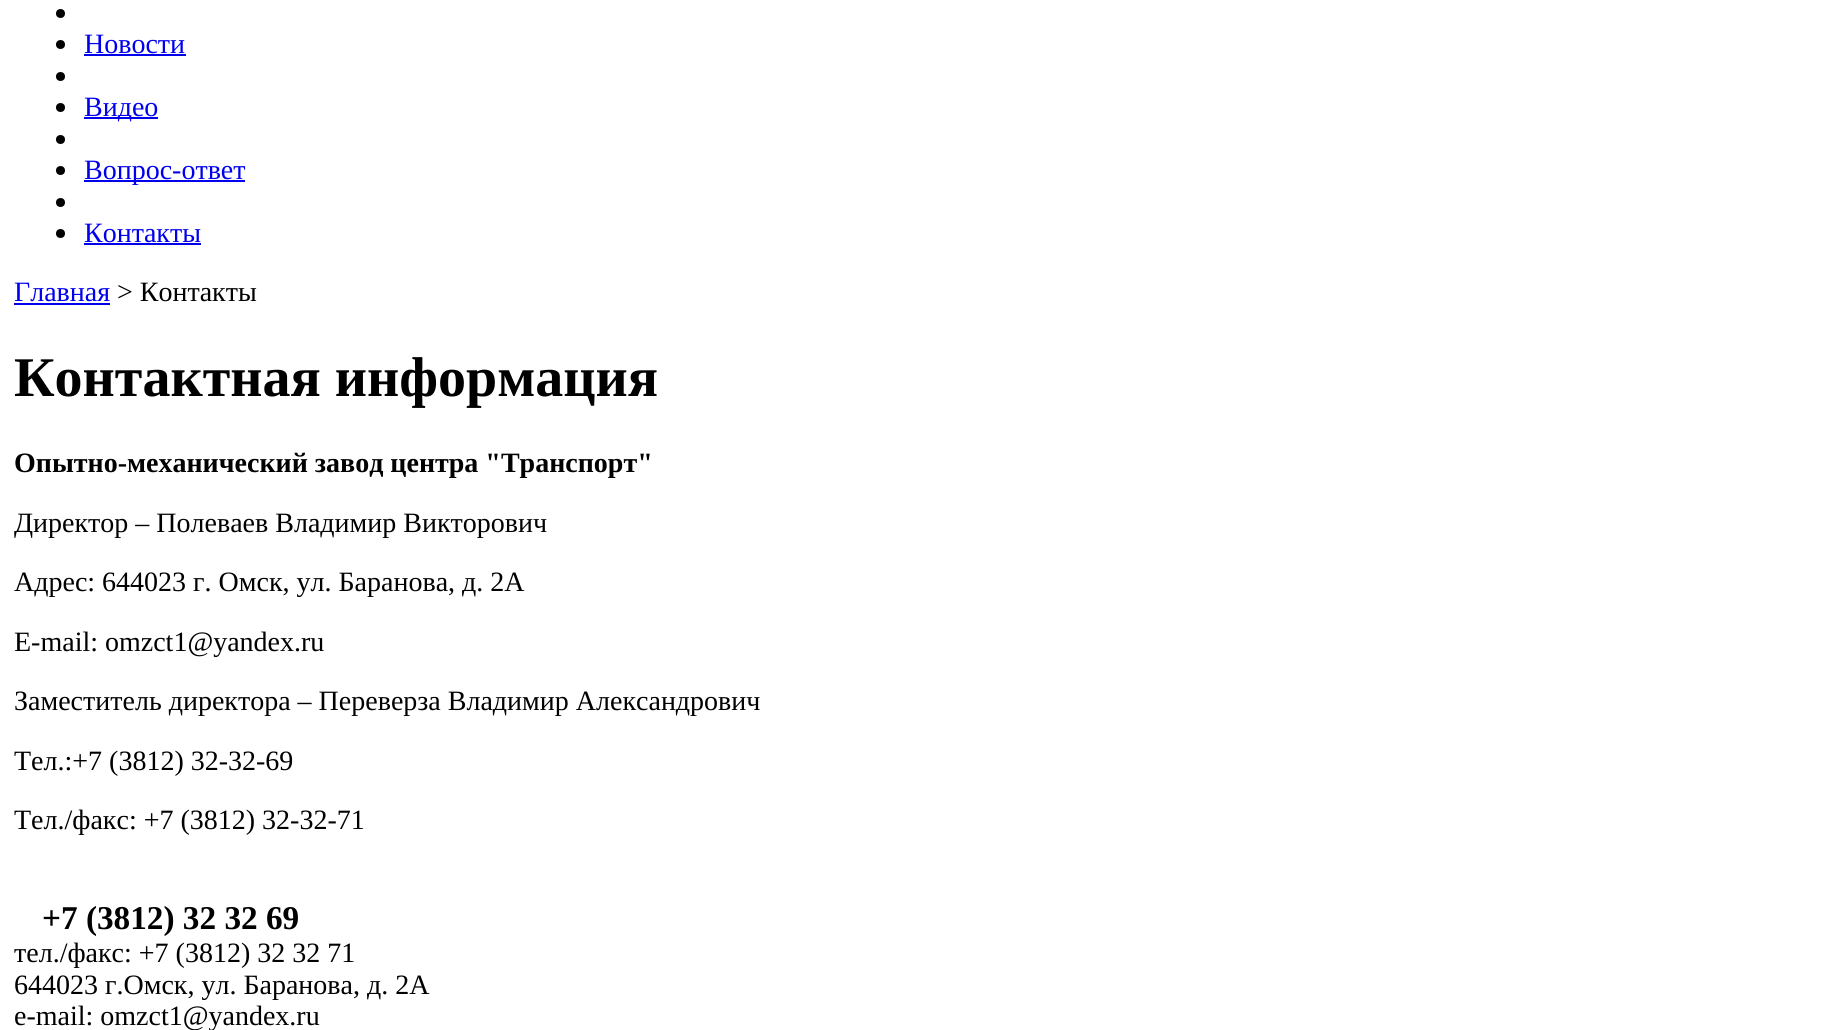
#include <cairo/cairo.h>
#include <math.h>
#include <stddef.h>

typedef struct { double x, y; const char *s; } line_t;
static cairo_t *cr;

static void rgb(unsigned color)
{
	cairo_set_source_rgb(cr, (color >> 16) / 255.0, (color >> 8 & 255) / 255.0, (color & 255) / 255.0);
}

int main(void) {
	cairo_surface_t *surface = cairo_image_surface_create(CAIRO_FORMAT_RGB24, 1844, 1030);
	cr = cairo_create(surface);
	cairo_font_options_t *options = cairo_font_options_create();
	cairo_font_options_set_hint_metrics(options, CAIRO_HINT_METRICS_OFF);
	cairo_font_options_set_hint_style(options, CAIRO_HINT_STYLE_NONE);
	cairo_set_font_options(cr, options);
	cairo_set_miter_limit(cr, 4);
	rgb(0xffffff);
	cairo_paint(cr);
	rgb(0x000000);
	cairo_arc(cr, 60.5, 13.5, 4.5, 0, 2 * M_PI);
	cairo_fill(cr);
	cairo_arc(cr, 60.5, 44.5, 4.5, 0, 2 * M_PI);
	cairo_fill(cr);
	rgb(0x0000ee);
	cairo_rectangle(cr, 84, 54, 102, 2);
	cairo_fill(cr);
	rgb(0x000000);
	cairo_arc(cr, 60.5, 76.5, 4.5, 0, 2 * M_PI);
	cairo_fill(cr);
	cairo_arc(cr, 60.5, 107.5, 4.5, 0, 2 * M_PI);
	cairo_fill(cr);
	rgb(0x0000ee);
	cairo_rectangle(cr, 84, 117, 74, 2);
	cairo_fill(cr);
	rgb(0x000000);
	cairo_arc(cr, 60.5, 139.5, 4.5, 0, 2 * M_PI);
	cairo_fill(cr);
	cairo_arc(cr, 60.5, 170.5, 4.5, 0, 2 * M_PI);
	cairo_fill(cr);
	rgb(0x0000ee);
	cairo_rectangle(cr, 84, 180, 161, 2);
	cairo_fill(cr);
	rgb(0x000000);
	cairo_arc(cr, 60.5, 202.5, 4.5, 0, 2 * M_PI);
	cairo_fill(cr);
	cairo_arc(cr, 60.5, 233.5, 4.5, 0, 2 * M_PI);
	cairo_fill(cr);
	rgb(0x0000ee);
	cairo_rectangle(cr, 84, 243, 117, 2);
	cairo_fill(cr);
	cairo_rectangle(cr, 14, 303, 96, 2);
	cairo_fill(cr);
	cairo_select_font_face(cr, "Liberation Serif", CAIRO_FONT_SLANT_NORMAL, CAIRO_FONT_WEIGHT_NORMAL);
	cairo_set_font_size(cr, 28);
	{
		static const line_t items[] = {
			{84, 53, "Новости"},
			{84, 116, "Видео"},
			{84, 179, "Вопрос-ответ"},
			{84, 242, "Контакты"},
			{14, 301, "Главная"},
		};
		for (size_t i = 0; i < sizeof items / sizeof *items; i++) {
			cairo_move_to(cr, items[i].x, items[i].y);
			cairo_show_text(cr, items[i].s);
		}
	}
	rgb(0x000000);
	cairo_move_to(cr, 117, 301);
	cairo_show_text(cr, "> Контакты");
	cairo_select_font_face(cr, "Liberation Serif", CAIRO_FONT_SLANT_NORMAL, CAIRO_FONT_WEIGHT_BOLD);
	cairo_set_font_size(cr, 56);
	cairo_move_to(cr, 14, 396);
	cairo_show_text(cr, "Контактная информация");
	cairo_set_font_size(cr, 28);
	cairo_move_to(cr, 14, 472);
	cairo_show_text(cr, "Опытно-механический завод центра \"Транспорт\"");
	cairo_select_font_face(cr, "Liberation Serif", CAIRO_FONT_SLANT_NORMAL, CAIRO_FONT_WEIGHT_NORMAL);
	{
		static const line_t items[] = {
			{14, 532, "Директор – Полеваев Владимир Викторович"},
			{14, 591, "Адрес: 644023 г. Омск, ул. Баранова, д. 2А"},
			{14, 651, "E-mail: omzct1@yandex.ru"},
			{14, 710, "Заместитель директора – Переверза Владимир Александрович"},
			{14, 770, "Тел.:+7 (3812) 32-32-69"},
			{14, 829, "Тел./факс: +7 (3812) 32-32-71"},
		};
		for (size_t i = 0; i < sizeof items / sizeof *items; i++) {
			cairo_move_to(cr, items[i].x, items[i].y);
			cairo_show_text(cr, items[i].s);
		}
	}
	cairo_select_font_face(cr, "Liberation Serif", CAIRO_FONT_SLANT_NORMAL, CAIRO_FONT_WEIGHT_BOLD);
	cairo_set_font_size(cr, 33.25);
	cairo_move_to(cr, 42, 929);
	cairo_show_text(cr, "+7 (3812) 32 32 69");
	cairo_select_font_face(cr, "Liberation Serif", CAIRO_FONT_SLANT_NORMAL, CAIRO_FONT_WEIGHT_NORMAL);
	cairo_set_font_size(cr, 28);
	{
		static const line_t items[] = {
			{14, 962, "тел./факс: +7 (3812) 32 32 71"},
			{14, 994, "644023 г.Омск, ул. Баранова, д. 2А"},
			{14, 1025, "e-mail: omzct1@yandex.ru"},
		};
		for (size_t i = 0; i < sizeof items / sizeof *items; i++) {
			cairo_move_to(cr, items[i].x, items[i].y);
			cairo_show_text(cr, items[i].s);
		}
	}
	cairo_surface_write_to_png(surface, "page.png");
	cairo_font_options_destroy(options);
	cairo_destroy(cr);
	cairo_surface_destroy(surface);
	return 0;
}
